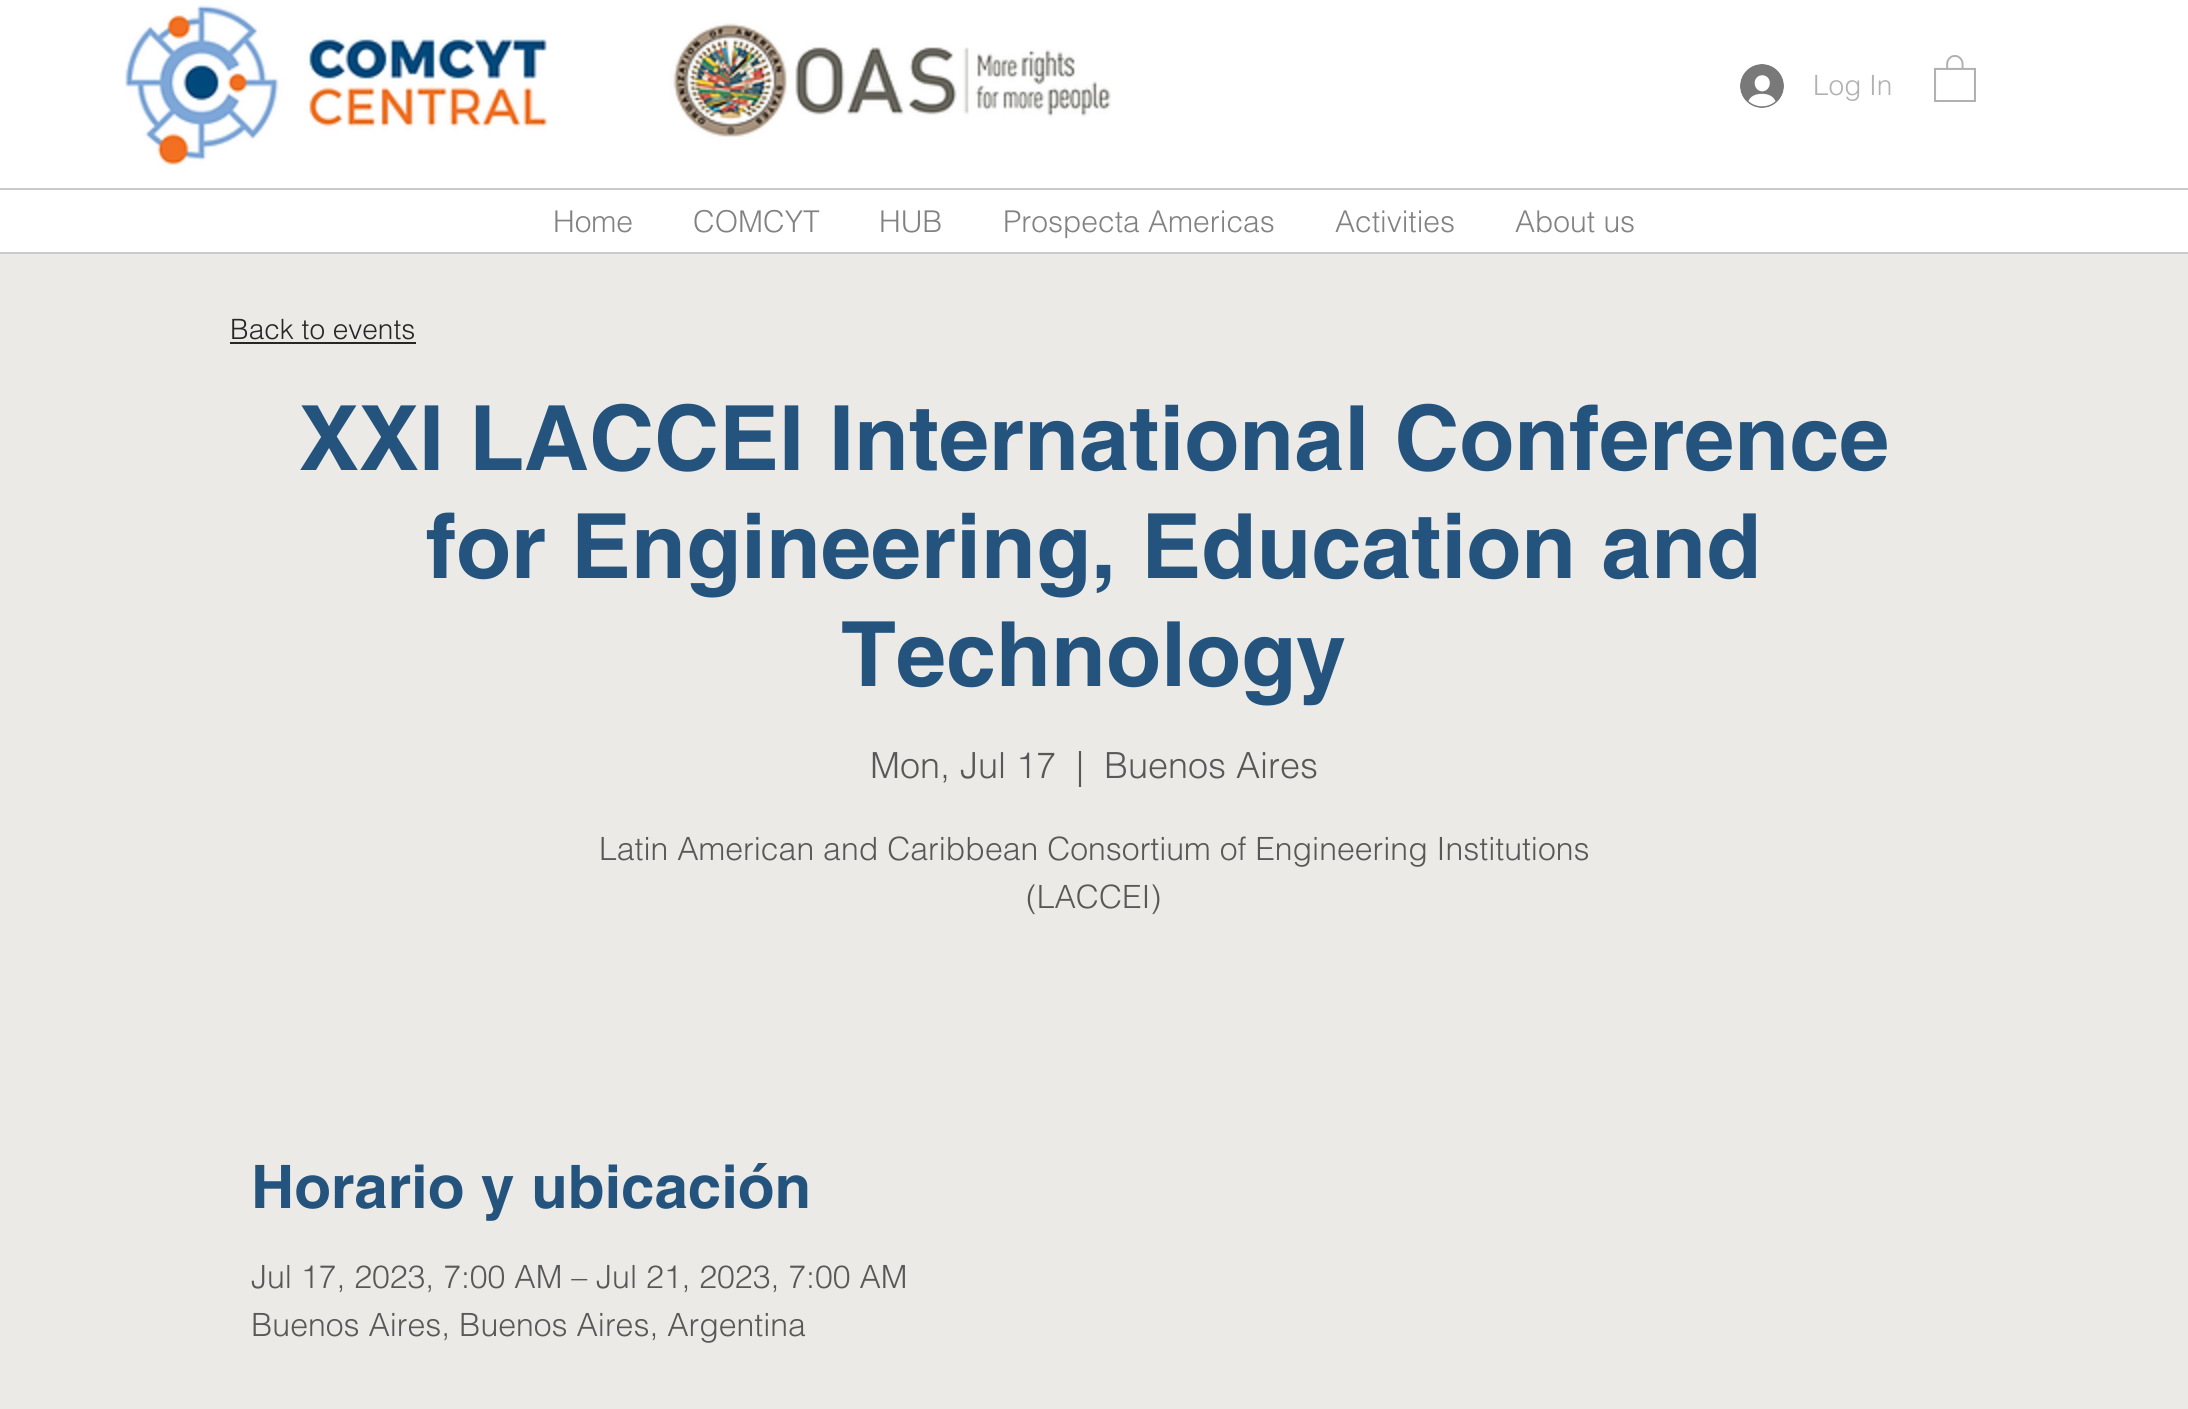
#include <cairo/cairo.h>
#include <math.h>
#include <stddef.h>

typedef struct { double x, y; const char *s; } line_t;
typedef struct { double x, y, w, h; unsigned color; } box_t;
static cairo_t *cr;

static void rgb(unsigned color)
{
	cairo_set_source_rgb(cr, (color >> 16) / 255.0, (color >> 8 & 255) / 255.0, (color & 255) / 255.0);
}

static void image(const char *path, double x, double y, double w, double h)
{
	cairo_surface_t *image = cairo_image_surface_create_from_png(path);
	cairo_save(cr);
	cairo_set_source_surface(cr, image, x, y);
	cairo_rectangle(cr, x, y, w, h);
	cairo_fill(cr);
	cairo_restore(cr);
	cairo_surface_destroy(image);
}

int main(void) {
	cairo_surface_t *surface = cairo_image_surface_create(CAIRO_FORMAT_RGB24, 2188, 1409);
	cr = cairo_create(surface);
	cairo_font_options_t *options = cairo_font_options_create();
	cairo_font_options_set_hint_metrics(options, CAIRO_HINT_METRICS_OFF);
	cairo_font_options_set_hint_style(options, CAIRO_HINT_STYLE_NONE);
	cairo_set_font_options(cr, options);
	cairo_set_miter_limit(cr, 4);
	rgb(0xebeae6);
	cairo_paint(cr);
	rgb(0xffffff);
	cairo_rectangle(cr, 0, 0, 2188, 252);
	cairo_fill(cr);
	image("img/1.png", 125, 5, 986, 161);
	image("img/2.png", 1740, 64, 44, 44);
	image("img/3.png", 1934, 55, 42, 47);
	{
		static const box_t items[] = {
			{0, 188, 2188, 2, 0xcacaca},
			{0, 252, 2188, 2, 0xcacaca},
			{230, 342, 186, 2, 0x282626},
		};
		for (size_t i = 0; i < sizeof items / sizeof *items; i++) {
			rgb(items[i].color);
			cairo_rectangle(cr, items[i].x, items[i].y, items[i].w, items[i].h);
			cairo_fill(cr);
		}
	}
	cairo_select_font_face(cr, "helvetica Light", CAIRO_FONT_SLANT_NORMAL, CAIRO_FONT_WEIGHT_NORMAL);
	cairo_set_font_size(cr, 28);
	rgb(0xb1b1b1);
	cairo_move_to(cr, 1813, 95);
	cairo_show_text(cr, "Log In");
	cairo_set_font_size(cr, 30);
	rgb(0x828282);
	{
		static const line_t items[] = {
			{553, 232, "Home"},
			{693, 232, "COMCYT"},
			{879, 232, "HUB"},
			{1003, 232, "Prospecta Americas"},
			{1335, 232, "Activities"},
			{1515, 232, "About us"},
		};
		for (size_t i = 0; i < sizeof items / sizeof *items; i++) {
			cairo_move_to(cr, items[i].x, items[i].y);
			cairo_show_text(cr, items[i].s);
		}
	}
	cairo_set_font_size(cr, 28);
	rgb(0x282626);
	cairo_move_to(cr, 230, 339);
	cairo_show_text(cr, "Back to events");
	cairo_select_font_face(cr, "helvetica", CAIRO_FONT_SLANT_NORMAL, CAIRO_FONT_WEIGHT_BOLD);
	cairo_set_font_size(cr, 90);
	rgb(0x24547d);
	{
		static const line_t items[] = {
			{299, 470, "XXI LACCEI International Conference"},
			{426, 578, "for Engineering, Education and"},
			{841, 686, "Technology"},
		};
		for (size_t i = 0; i < sizeof items / sizeof *items; i++) {
			cairo_move_to(cr, items[i].x, items[i].y);
			cairo_show_text(cr, items[i].s);
		}
	}
	cairo_select_font_face(cr, "helvetica Light", CAIRO_FONT_SLANT_NORMAL, CAIRO_FONT_WEIGHT_NORMAL);
	cairo_set_font_size(cr, 36);
	rgb(0x585858);
	{
		static const line_t items[] = {
			{870, 778, "Mon, Jul 17"},
			{1076, 778, "|"},
			{1104, 778, "Buenos Aires"},
		};
		for (size_t i = 0; i < sizeof items / sizeof *items; i++) {
			cairo_move_to(cr, items[i].x, items[i].y);
			cairo_show_text(cr, items[i].s);
		}
	}
	cairo_set_font_size(cr, 32);
	cairo_move_to(cr, 599, 860);
	cairo_show_text(cr, "Latin American and Caribbean Consortium of Engineering Institutions");
	cairo_move_to(cr, 1026, 908);
	cairo_show_text(cr, "(LACCEI)");
	cairo_select_font_face(cr, "helvetica", CAIRO_FONT_SLANT_NORMAL, CAIRO_FONT_WEIGHT_BOLD);
	cairo_set_font_size(cr, 60);
	rgb(0x24547d);
	cairo_move_to(cr, 251, 1208);
	cairo_show_text(cr, "Horario y ubicación");
	cairo_select_font_face(cr, "helvetica Light", CAIRO_FONT_SLANT_NORMAL, CAIRO_FONT_WEIGHT_NORMAL);
	cairo_set_font_size(cr, 32);
	rgb(0x585858);
	cairo_move_to(cr, 251, 1288);
	cairo_show_text(cr, "Jul 17, 2023, 7:00 AM – Jul 21, 2023, 7:00 AM");
	cairo_move_to(cr, 251, 1336);
	cairo_show_text(cr, "Buenos Aires, Buenos Aires, Argentina");
	cairo_surface_write_to_png(surface, "page.png");
	cairo_font_options_destroy(options);
	cairo_destroy(cr);
	cairo_surface_destroy(surface);
	return 0;
}
